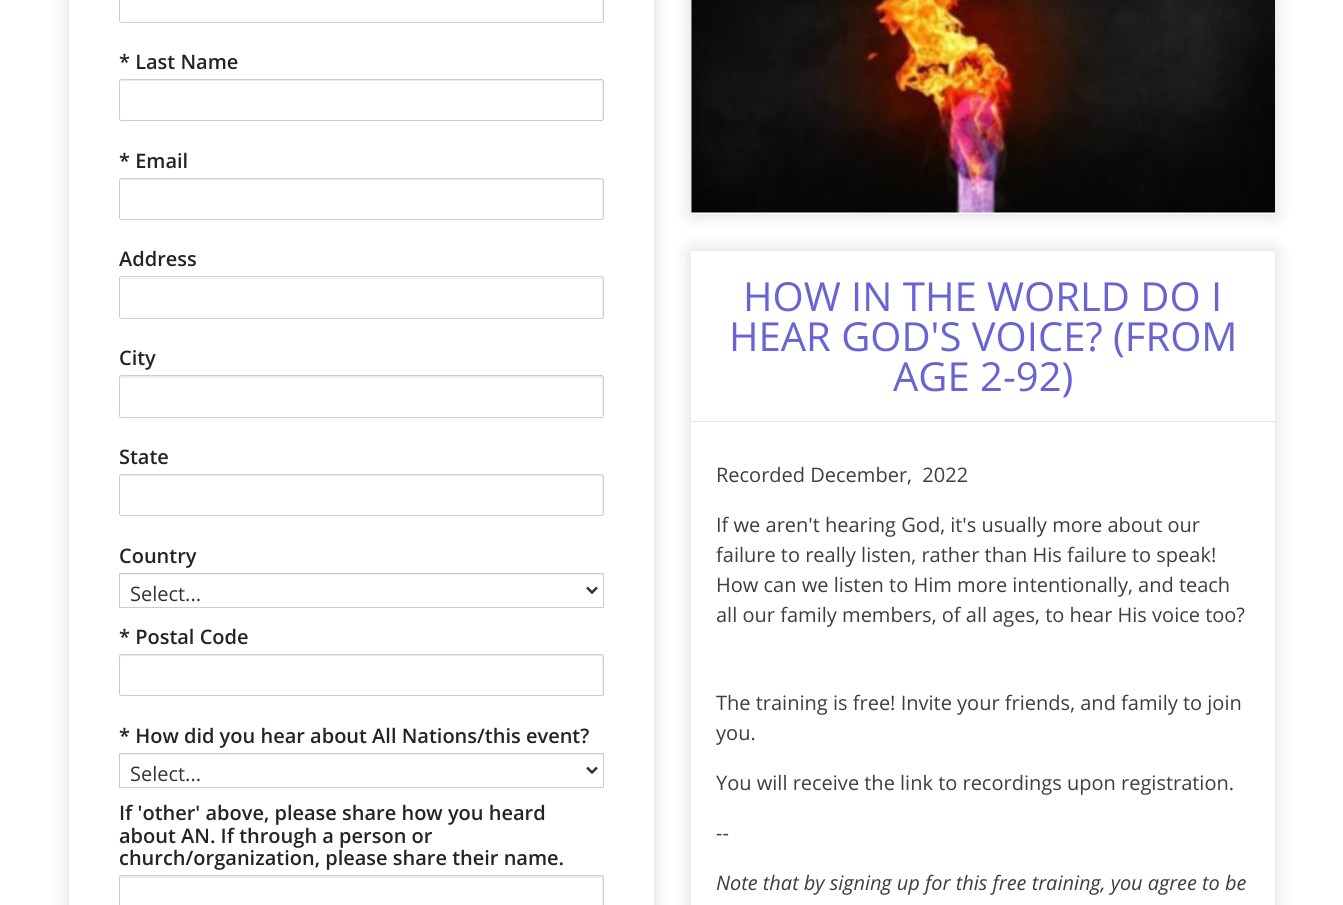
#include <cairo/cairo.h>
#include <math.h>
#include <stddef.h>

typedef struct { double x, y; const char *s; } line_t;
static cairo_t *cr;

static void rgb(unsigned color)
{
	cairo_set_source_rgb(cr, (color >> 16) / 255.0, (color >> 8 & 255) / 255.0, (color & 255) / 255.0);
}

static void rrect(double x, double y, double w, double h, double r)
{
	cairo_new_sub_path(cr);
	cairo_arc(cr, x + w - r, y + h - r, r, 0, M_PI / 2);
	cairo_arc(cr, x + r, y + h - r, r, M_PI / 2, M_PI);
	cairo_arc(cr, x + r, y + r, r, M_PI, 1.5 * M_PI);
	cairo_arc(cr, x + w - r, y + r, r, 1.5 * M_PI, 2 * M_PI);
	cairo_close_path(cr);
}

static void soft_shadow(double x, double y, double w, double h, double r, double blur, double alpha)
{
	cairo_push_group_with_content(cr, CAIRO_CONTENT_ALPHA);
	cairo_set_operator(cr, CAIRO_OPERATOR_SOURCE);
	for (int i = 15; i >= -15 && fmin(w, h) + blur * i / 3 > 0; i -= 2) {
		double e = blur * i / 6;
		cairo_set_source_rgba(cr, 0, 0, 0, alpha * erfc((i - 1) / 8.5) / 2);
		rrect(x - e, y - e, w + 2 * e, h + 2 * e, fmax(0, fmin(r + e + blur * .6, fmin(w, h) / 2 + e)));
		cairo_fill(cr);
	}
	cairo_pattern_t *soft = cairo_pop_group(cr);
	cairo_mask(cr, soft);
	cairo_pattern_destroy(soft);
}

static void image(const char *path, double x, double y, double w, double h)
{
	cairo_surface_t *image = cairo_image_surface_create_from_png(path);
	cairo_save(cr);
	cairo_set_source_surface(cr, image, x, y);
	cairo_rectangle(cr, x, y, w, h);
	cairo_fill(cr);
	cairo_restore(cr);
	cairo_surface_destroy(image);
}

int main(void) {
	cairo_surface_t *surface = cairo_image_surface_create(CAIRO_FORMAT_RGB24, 1343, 905);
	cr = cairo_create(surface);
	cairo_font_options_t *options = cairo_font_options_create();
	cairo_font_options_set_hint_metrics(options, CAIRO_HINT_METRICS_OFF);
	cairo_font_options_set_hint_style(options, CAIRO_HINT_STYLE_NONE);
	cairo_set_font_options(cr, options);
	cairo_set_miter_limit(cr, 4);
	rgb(0xffffff);
	cairo_paint(cr);
	cairo_save(cr);
	cairo_set_fill_rule(cr, CAIRO_FILL_RULE_EVEN_ODD);
	cairo_new_path(cr);
	cairo_move_to(cr, 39, 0);
	cairo_line_to(cr, 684, 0);
	cairo_line_to(cr, 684, 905);
	cairo_line_to(cr, 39, 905);
	cairo_close_path(cr);
	cairo_move_to(cr, 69, -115);
	cairo_line_to(cr, 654, -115);
	cairo_line_to(cr, 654, 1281);
	cairo_line_to(cr, 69, 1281);
	cairo_close_path(cr);
	cairo_clip(cr);
	rgb(0x000000);
	soft_shadow(69, -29, 585, 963, 0, 9.5, 0.15);
	cairo_restore(cr);
	cairo_set_source_rgba(cr, 1, 1, 1, 0.93);
	cairo_rectangle(cr, 653, 0, 1, 905);
	cairo_fill(cr);
	rgb(0xececec);
	cairo_new_path(cr);
	cairo_move_to(cr, 121, -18);
	cairo_line_to(cr, 601, -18);
	cairo_curve_to(cr, 602, -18, 602, -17, 602, -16);
	cairo_line_to(cr, 602, 21);
	cairo_line_to(cr, 603, 20);
	cairo_line_to(cr, 603, -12);
	cairo_curve_to(cr, 603, -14, 604, -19, 602, -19);
	cairo_line_to(cr, 121, -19);
	cairo_curve_to(cr, 120, -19, 120, -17, 120, -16);
	cairo_close_path(cr);
	cairo_fill(cr);
	rrect(119.5, -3.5, 484, 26, 2);
	rgb(0xcccccc);
	cairo_set_line_width(cr, 1);
	cairo_stroke(cr);
	rgb(0xececec);
	cairo_new_path(cr);
	cairo_move_to(cr, 121, 81);
	cairo_line_to(cr, 601, 81);
	cairo_curve_to(cr, 602, 81, 602, 82, 602, 82);
	cairo_line_to(cr, 602, 120);
	cairo_line_to(cr, 603, 119);
	cairo_line_to(cr, 603, 87);
	cairo_curve_to(cr, 603, 85, 604, 80, 602, 80);
	cairo_line_to(cr, 121, 80);
	cairo_curve_to(cr, 120, 80, 120, 81, 120, 82);
	cairo_close_path(cr);
	cairo_fill(cr);
	rrect(119.5, 79.5, 484, 41, 2);
	rgb(0xcccccc);
	cairo_stroke(cr);
	rgb(0xececec);
	cairo_new_path(cr);
	cairo_move_to(cr, 121, 180);
	cairo_line_to(cr, 601, 180);
	cairo_curve_to(cr, 602, 180, 602, 181, 602, 181);
	cairo_line_to(cr, 602, 219);
	cairo_line_to(cr, 603, 218);
	cairo_line_to(cr, 603, 186);
	cairo_curve_to(cr, 603, 184, 604, 179, 602, 179);
	cairo_line_to(cr, 121, 179);
	cairo_curve_to(cr, 120, 179, 120, 180, 120, 181);
	cairo_close_path(cr);
	cairo_fill(cr);
	rrect(119.5, 178.5, 484, 41, 2);
	rgb(0xcccccc);
	cairo_stroke(cr);
	rgb(0xececec);
	cairo_new_path(cr);
	cairo_move_to(cr, 121, 279);
	cairo_line_to(cr, 601, 279);
	cairo_curve_to(cr, 602, 279, 602, 279, 602, 280);
	cairo_line_to(cr, 602, 318);
	cairo_line_to(cr, 603, 317);
	cairo_line_to(cr, 603, 285);
	cairo_curve_to(cr, 603, 283, 604, 278, 602, 278);
	cairo_line_to(cr, 121, 278);
	cairo_curve_to(cr, 120, 278, 120, 279, 120, 280);
	cairo_close_path(cr);
	cairo_fill(cr);
	rrect(119.5, 276.5, 484, 42, 2);
	rgb(0xcccccc);
	cairo_stroke(cr);
	rgb(0xececec);
	cairo_new_path(cr);
	cairo_move_to(cr, 121, 378);
	cairo_line_to(cr, 601, 378);
	cairo_curve_to(cr, 602, 378, 602, 378, 602, 379);
	cairo_line_to(cr, 602, 416);
	cairo_line_to(cr, 603, 415);
	cairo_line_to(cr, 603, 383);
	cairo_curve_to(cr, 603, 381, 604, 376, 602, 376);
	cairo_line_to(cr, 121, 376);
	cairo_curve_to(cr, 120, 376, 120, 378, 120, 379);
	cairo_close_path(cr);
	cairo_fill(cr);
	rrect(119.5, 375.5, 484, 42, 2);
	rgb(0xcccccc);
	cairo_stroke(cr);
	rgb(0xececec);
	cairo_new_path(cr);
	cairo_move_to(cr, 121, 476);
	cairo_line_to(cr, 601, 476);
	cairo_curve_to(cr, 602, 476, 602, 477, 602, 478);
	cairo_line_to(cr, 602, 515);
	cairo_line_to(cr, 603, 514);
	cairo_line_to(cr, 603, 482);
	cairo_curve_to(cr, 603, 480, 604, 475, 602, 475);
	cairo_line_to(cr, 121, 475);
	cairo_curve_to(cr, 120, 475, 120, 477, 120, 478);
	cairo_close_path(cr);
	cairo_fill(cr);
	rrect(119.5, 474.5, 484, 41, 2);
	rgb(0xcccccc);
	cairo_stroke(cr);
	rgb(0xececec);
	cairo_rectangle(cr, 120, 574, 483, 1);
	cairo_fill(cr);
	cairo_rectangle(cr, 119.5, 573.5, 484, 34);
	rgb(0xcccccc);
	cairo_stroke(cr);
	cairo_new_path(cr);
	cairo_move_to(cr, 587, 587.5);
	cairo_line_to(cr, 592, 592.5);
	cairo_line_to(cr, 597, 587.5);
	rgb(0x333333);
	cairo_set_line_width(cr, 2.5);
	cairo_stroke(cr);
	rgb(0xececec);
	cairo_new_path(cr);
	cairo_move_to(cr, 121, 656);
	cairo_line_to(cr, 601, 656);
	cairo_curve_to(cr, 602, 656, 602, 657, 602, 658);
	cairo_line_to(cr, 602, 695);
	cairo_line_to(cr, 603, 694);
	cairo_line_to(cr, 603, 662);
	cairo_curve_to(cr, 603, 660, 604, 655, 602, 655);
	cairo_line_to(cr, 121, 655);
	cairo_curve_to(cr, 120, 655, 120, 657, 120, 658);
	cairo_close_path(cr);
	cairo_fill(cr);
	rrect(119.5, 654.5, 484, 41, 2);
	rgb(0xcccccc);
	cairo_set_line_width(cr, 1);
	cairo_stroke(cr);
	rgb(0xececec);
	cairo_rectangle(cr, 120, 754, 483, 1);
	cairo_fill(cr);
	cairo_rectangle(cr, 119.5, 753.5, 484, 34);
	rgb(0xcccccc);
	cairo_stroke(cr);
	cairo_new_path(cr);
	cairo_move_to(cr, 587, 767.5);
	cairo_line_to(cr, 592, 772.5);
	cairo_line_to(cr, 597, 767.5);
	rgb(0x333333);
	cairo_set_line_width(cr, 2.5);
	cairo_stroke(cr);
	rgb(0xececec);
	cairo_new_path(cr);
	cairo_move_to(cr, 121, 878);
	cairo_line_to(cr, 601, 878);
	cairo_curve_to(cr, 602, 878, 602, 878, 602, 879);
	cairo_line_to(cr, 602, 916);
	cairo_line_to(cr, 603, 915);
	cairo_line_to(cr, 603, 883);
	cairo_curve_to(cr, 603, 881, 604, 876, 602, 876);
	cairo_line_to(cr, 121, 876);
	cairo_curve_to(cr, 120, 876, 120, 878, 120, 879);
	cairo_close_path(cr);
	cairo_fill(cr);
	rrect(119.5, 875.5, 484, 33, 2);
	rgb(0xcccccc);
	cairo_set_line_width(cr, 1);
	cairo_stroke(cr);
	rgb(0x000000);
	soft_shadow(691, -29, 584, 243, 0, 9.5, 0.15);
	cairo_set_source_rgba(cr, 1, 1, 1, 0.93);
	cairo_rectangle(cr, 691, 0, 584, 214);
	cairo_fill(cr);
	image("img/1.png", 691, 0, 584, 213);
	cairo_save(cr);
	cairo_set_fill_rule(cr, CAIRO_FILL_RULE_EVEN_ODD);
	cairo_new_path(cr);
	cairo_move_to(cr, 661, 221);
	cairo_line_to(cr, 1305, 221);
	cairo_line_to(cr, 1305, 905);
	cairo_line_to(cr, 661, 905);
	cairo_close_path(cr);
	cairo_move_to(cr, 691, 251);
	cairo_line_to(cr, 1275, 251);
	cairo_line_to(cr, 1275, 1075);
	cairo_line_to(cr, 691, 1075);
	cairo_close_path(cr);
	cairo_clip(cr);
	rgb(0x000000);
	soft_shadow(691, 251, 584, 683, 0, 9.5, 0.15);
	cairo_restore(cr);
	cairo_rectangle(cr, 691, 251, 583, 654);
	cairo_fill(cr);
	rgb(0xe3e3e3);
	cairo_rectangle(cr, 691, 421, 584, 1);
	cairo_fill(cr);
	cairo_select_font_face(cr, "Open Sans SemiBold", CAIRO_FONT_SLANT_NORMAL, CAIRO_FONT_WEIGHT_NORMAL);
	cairo_set_font_size(cr, 20);
	rgb(0x242424);
	{
		static const line_t items[] = {
			{119, 69, "* Last Name"},
			{119, 168, "* Email"},
			{119, 266, "Address"},
			{119, 365, "City"},
			{119, 464, "State"},
			{119, 563, "Country"},
		};
		for (size_t i = 0; i < sizeof items / sizeof *items; i++) {
			cairo_move_to(cr, items[i].x, items[i].y);
			cairo_show_text(cr, items[i].s);
		}
	}
	cairo_select_font_face(cr, "Open Sans", CAIRO_FONT_SLANT_NORMAL, CAIRO_FONT_WEIGHT_NORMAL);
	rgb(0x333333);
	cairo_move_to(cr, 130, 601);
	cairo_show_text(cr, "Select...");
	cairo_select_font_face(cr, "Open Sans SemiBold", CAIRO_FONT_SLANT_NORMAL, CAIRO_FONT_WEIGHT_NORMAL);
	rgb(0x242424);
	cairo_move_to(cr, 119, 644);
	cairo_show_text(cr, "* Postal Code");
	cairo_move_to(cr, 119, 743);
	cairo_show_text(cr, "* How did you hear about All Nations/this event?");
	cairo_select_font_face(cr, "Open Sans", CAIRO_FONT_SLANT_NORMAL, CAIRO_FONT_WEIGHT_NORMAL);
	rgb(0x333333);
	cairo_move_to(cr, 130, 781);
	cairo_show_text(cr, "Select...");
	cairo_select_font_face(cr, "Open Sans SemiBold", CAIRO_FONT_SLANT_NORMAL, CAIRO_FONT_WEIGHT_NORMAL);
	rgb(0x242424);
	{
		static const line_t items[] = {
			{119, 820, "If 'other' above, please share how you heard"},
			{119, 843, "about AN. If through a person or"},
			{119, 865, "church/organization, please share their name."},
		};
		for (size_t i = 0; i < sizeof items / sizeof *items; i++) {
			cairo_move_to(cr, items[i].x, items[i].y);
			cairo_show_text(cr, items[i].s);
		}
	}
	cairo_select_font_face(cr, "Open Sans", CAIRO_FONT_SLANT_NORMAL, CAIRO_FONT_WEIGHT_NORMAL);
	cairo_set_font_size(cr, 40);
	rgb(0x6964d3);
	{
		static const line_t items[] = {
			{743, 311, "HOW IN THE WORLD DO I"},
			{729, 351, "HEAR GOD'S VOICE? (FROM"},
			{893, 391, "AGE 2-92)"},
		};
		for (size_t i = 0; i < sizeof items / sizeof *items; i++) {
			cairo_move_to(cr, items[i].x, items[i].y);
			cairo_show_text(cr, items[i].s);
		}
	}
	cairo_set_font_size(cr, 20);
	rgb(0x3e3e3e);
	{
		static const line_t items[] = {
			{716, 482, "Recorded December,  2022"},
			{716, 532, "If we aren't hearing God, it's usually more about our"},
			{716, 562, "failure to really listen, rather than His failure to speak!"},
			{716, 592, "How can we listen to Him more intentionally, and teach"},
			{716, 622, "all our family members, of all ages, to hear His voice too?"},
			{716, 710, "The training is free! Invite your friends, and family to join"},
			{716, 740, "you."},
			{716, 790, "You will receive the link to recordings upon registration."},
			{716, 840, "--"},
		};
		for (size_t i = 0; i < sizeof items / sizeof *items; i++) {
			cairo_move_to(cr, items[i].x, items[i].y);
			cairo_show_text(cr, items[i].s);
		}
	}
	cairo_select_font_face(cr, "Open Sans", CAIRO_FONT_SLANT_ITALIC, CAIRO_FONT_WEIGHT_NORMAL);
	cairo_move_to(cr, 716, 890);
	cairo_show_text(cr, "Note that by signing up for this free training, you agree to be");
	cairo_surface_write_to_png(surface, "page.png");
	cairo_font_options_destroy(options);
	cairo_destroy(cr);
	cairo_surface_destroy(surface);
	return 0;
}
